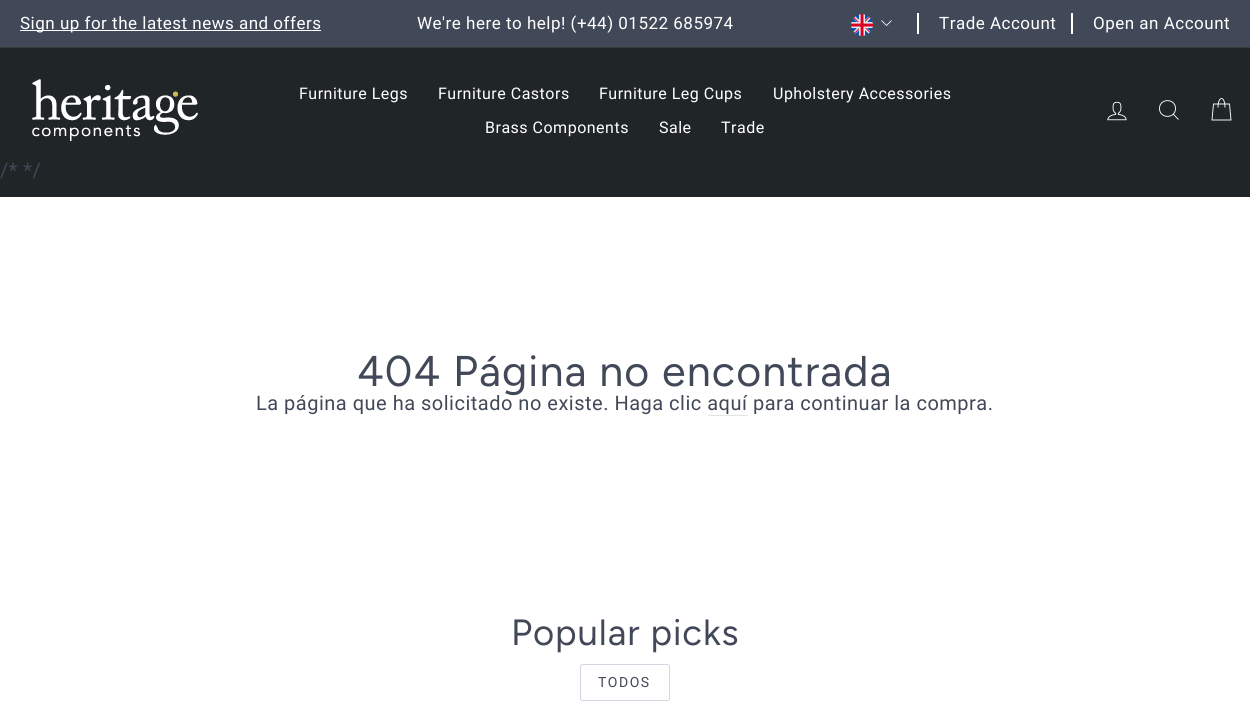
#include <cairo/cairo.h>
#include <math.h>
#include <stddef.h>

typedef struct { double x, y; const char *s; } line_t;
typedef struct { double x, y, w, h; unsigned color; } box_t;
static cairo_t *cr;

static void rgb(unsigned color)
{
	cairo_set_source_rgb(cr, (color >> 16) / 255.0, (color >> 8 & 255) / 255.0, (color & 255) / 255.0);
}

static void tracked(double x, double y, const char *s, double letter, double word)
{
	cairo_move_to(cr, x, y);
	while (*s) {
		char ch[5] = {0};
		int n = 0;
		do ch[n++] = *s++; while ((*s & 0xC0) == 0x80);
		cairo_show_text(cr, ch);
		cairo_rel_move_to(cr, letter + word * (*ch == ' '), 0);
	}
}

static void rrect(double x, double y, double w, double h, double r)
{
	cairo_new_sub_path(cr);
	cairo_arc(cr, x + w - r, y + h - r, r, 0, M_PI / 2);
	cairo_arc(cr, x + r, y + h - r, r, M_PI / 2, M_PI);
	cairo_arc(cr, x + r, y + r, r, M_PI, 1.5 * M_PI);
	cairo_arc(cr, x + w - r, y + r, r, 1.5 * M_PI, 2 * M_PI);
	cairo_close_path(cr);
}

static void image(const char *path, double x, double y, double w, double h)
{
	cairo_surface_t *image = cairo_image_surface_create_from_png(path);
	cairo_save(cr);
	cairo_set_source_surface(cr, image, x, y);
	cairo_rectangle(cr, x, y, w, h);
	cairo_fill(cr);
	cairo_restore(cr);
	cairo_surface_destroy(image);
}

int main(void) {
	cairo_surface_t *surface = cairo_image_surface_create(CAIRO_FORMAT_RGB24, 1250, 707);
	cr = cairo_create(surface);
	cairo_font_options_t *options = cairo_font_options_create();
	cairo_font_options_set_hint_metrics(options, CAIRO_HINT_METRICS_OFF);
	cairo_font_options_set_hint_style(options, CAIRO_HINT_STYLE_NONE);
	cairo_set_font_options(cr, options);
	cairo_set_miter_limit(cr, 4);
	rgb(0xffffff);
	cairo_paint(cr);
	rgb(0x414857);
	cairo_rectangle(cr, 0, 0, 1250, 47);
	cairo_fill(cr);
	rgb(0xffffff);
	cairo_rectangle(cr, 20, 30, 301, 1);
	cairo_fill(cr);
	image("img/1.png", 851, 14, 22, 22);
	cairo_new_path(cr);
	cairo_move_to(cr, 881.5, 20.5);
	cairo_line_to(cr, 886.5, 25.5);
	cairo_line_to(cr, 891.5, 20.5);
	cairo_set_line_width(cr, 0.8);
	cairo_stroke(cr);
	{
		static const box_t items[] = {
			{917, 13, 2, 21, 0xffffff},
			{1071, 13, 2, 21, 0xffffff},
			{0, 48, 1250, 149, 0x202528},
			{0, 47, 1250, 1, 0x363b3e},
		};
		for (size_t i = 0; i < sizeof items / sizeof *items; i++) {
			rgb(items[i].color);
			cairo_rectangle(cr, items[i].x, items[i].y, items[i].w, items[i].h);
			cairo_fill(cr);
		}
	}
	image("img/2.png", 32, 79, 166, 62);
	image("img/3.png", 1107, 101, 20, 20);
	cairo_new_path(cr);
	cairo_move_to(cr, 1175.5, 108.5);
	cairo_curve_to(cr, 1175.5, 119, 1159.5, 119, 1159.5, 108.5);
	cairo_curve_to(cr, 1159.5, 98, 1175.5, 98, 1175.5, 108.5);
	cairo_close_path(cr);
	cairo_move_to(cr, 1178.5, 119.5);
	cairo_line_to(cr, 1173.5, 114.5);
	rgb(0xffffff);
	cairo_set_line_width(cr, 0.9);
	cairo_stroke(cr);
	cairo_new_path(cr);
	cairo_move_to(cr, 1218, 107.5);
	cairo_curve_to(cr, 1218, 95.5, 1225, 95.5, 1225, 107.5);
	cairo_move_to(cr, 1213.5, 104);
	cairo_line_to(cr, 1229.5, 104);
	cairo_line_to(cr, 1231, 120);
	cairo_line_to(cr, 1212, 120);
	cairo_close_path(cr);
	cairo_stroke(cr);
	rgb(0xe3e4e6);
	cairo_rectangle(cr, 708, 415, 40, 1);
	cairo_fill(cr);
	rrect(580.5, 664.5, 89, 36, 2.5);
	rgb(0xcfd6e0);
	cairo_set_line_width(cr, 1);
	cairo_stroke(cr);
	cairo_select_font_face(cr, "Roboto", CAIRO_FONT_SLANT_NORMAL, CAIRO_FONT_WEIGHT_NORMAL);
	cairo_set_font_size(cr, 17);
	rgb(0xffffff);
	{
		static const line_t items[] = {
			{20, 29, "Sign up for the latest news and offers"},
			{417, 29, "We're here to help! (+44) 01522 685974"},
			{939, 29, "Trade Account"},
			{1093, 29, "Open an Account"},
		};
		for (size_t i = 0; i < sizeof items / sizeof *items; i++) {
			tracked(items[i].x, items[i].y, items[i].s, 0.5, 0);
		}
	}
	cairo_set_font_size(cr, 16);
	{
		static const line_t items[] = {
			{299, 99, "Furniture Legs"},
			{438, 99, "Furniture Castors"},
			{599, 99, "Furniture Leg Cups"},
			{773, 99, "Upholstery Accessories"},
			{485, 133, "Brass Components"},
			{659, 133, "Sale"},
			{721, 133, "Trade"},
		};
		for (size_t i = 0; i < sizeof items / sizeof *items; i++) {
			tracked(items[i].x, items[i].y, items[i].s, 0.5, 0);
		}
	}
	cairo_set_font_size(cr, 20);
	rgb(0x414857);
	tracked(0, 177, "/* */", 0.5, 0);
	cairo_select_font_face(cr, "Figtree", CAIRO_FONT_SLANT_NORMAL, CAIRO_FONT_WEIGHT_NORMAL);
	cairo_set_font_size(cr, 43);
	tracked(357, 386, "404 Página no encontrada", 1.1, 0);
	cairo_select_font_face(cr, "Roboto", CAIRO_FONT_SLANT_NORMAL, CAIRO_FONT_WEIGHT_NORMAL);
	cairo_set_font_size(cr, 20);
	tracked(256, 410, "La página que ha solicitado no existe. Haga clic aquí", 0.5, 0);
	tracked(753, 410, "para continuar la compra.", 0.5, 0);
	cairo_select_font_face(cr, "Figtree", CAIRO_FONT_SLANT_NORMAL, CAIRO_FONT_WEIGHT_NORMAL);
	cairo_set_font_size(cr, 36.5);
	tracked(511, 645, "Popular picks", 0.9, 0);
	cairo_select_font_face(cr, "Roboto", CAIRO_FONT_SLANT_NORMAL, CAIRO_FONT_WEIGHT_NORMAL);
	cairo_set_font_size(cr, 14);
	tracked(598, 687, "TODOS", 1.5, 0);
	cairo_surface_write_to_png(surface, "page.png");
	cairo_font_options_destroy(options);
	cairo_destroy(cr);
	cairo_surface_destroy(surface);
	return 0;
}
